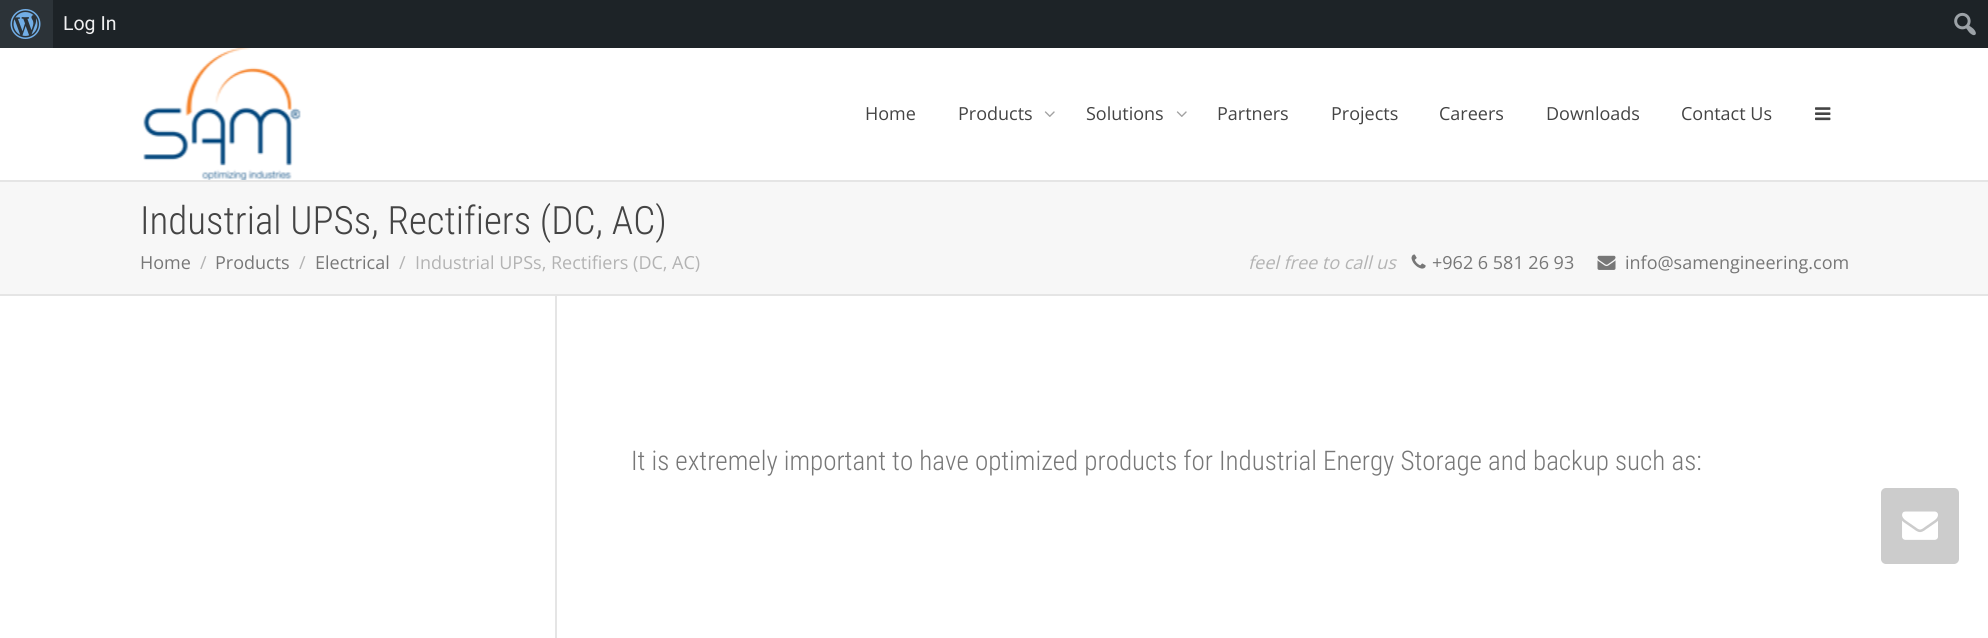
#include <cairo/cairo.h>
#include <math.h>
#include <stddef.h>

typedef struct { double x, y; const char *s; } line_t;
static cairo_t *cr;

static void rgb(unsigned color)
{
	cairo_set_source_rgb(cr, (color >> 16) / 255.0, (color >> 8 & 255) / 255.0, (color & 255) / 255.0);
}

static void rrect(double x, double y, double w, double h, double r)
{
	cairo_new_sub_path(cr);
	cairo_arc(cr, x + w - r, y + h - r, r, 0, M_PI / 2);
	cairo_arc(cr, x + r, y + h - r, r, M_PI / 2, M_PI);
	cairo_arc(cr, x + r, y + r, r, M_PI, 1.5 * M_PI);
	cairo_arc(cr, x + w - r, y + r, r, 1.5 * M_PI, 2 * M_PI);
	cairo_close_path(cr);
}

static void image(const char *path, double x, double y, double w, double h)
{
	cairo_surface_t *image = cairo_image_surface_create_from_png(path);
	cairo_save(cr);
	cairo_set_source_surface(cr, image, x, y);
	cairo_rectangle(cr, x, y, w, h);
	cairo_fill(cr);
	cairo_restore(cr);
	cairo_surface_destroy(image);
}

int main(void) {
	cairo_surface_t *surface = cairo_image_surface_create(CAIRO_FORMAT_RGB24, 1988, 638);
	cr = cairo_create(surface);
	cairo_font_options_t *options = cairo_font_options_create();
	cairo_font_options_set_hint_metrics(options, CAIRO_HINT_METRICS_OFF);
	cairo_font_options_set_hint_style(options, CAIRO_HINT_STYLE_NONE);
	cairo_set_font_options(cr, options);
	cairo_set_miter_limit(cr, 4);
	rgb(0xffffff);
	cairo_paint(cr);
	rgb(0x1d2327);
	cairo_rectangle(cr, 53, 0, 1935, 48);
	cairo_fill(cr);
	rgb(0x2c3338);
	cairo_rectangle(cr, 0, 0, 53, 48);
	cairo_fill(cr);
	image("img/1.png", 10, 9, 31, 30);
	image("img/2.png", 1954, 12, 22, 24);
	rgb(0xe5e5e5);
	cairo_rectangle(cr, 0, 180, 1988, 2);
	cairo_fill(cr);
	image("img/3.png", 143, 48, 158, 132);
	image("img/4.png", 1044, 111, 11, 6);
	image("img/4.png", 1176, 111, 11, 6);
	image("img/5.png", 1815, 107, 16, 14);
	rgb(0xf7f7f7);
	cairo_rectangle(cr, 0, 182, 1988, 112);
	cairo_fill(cr);
	rgb(0xe5e5e5);
	cairo_rectangle(cr, 0, 294, 1988, 2);
	cairo_fill(cr);
	image("img/6.png", 1411, 254, 15, 15);
	image("img/7.png", 1597, 255, 19, 15);
	cairo_rectangle(cr, 555, 296, 2, 342);
	cairo_fill(cr);
	rgb(0xcccccc);
	rrect(1881, 488, 78, 76, 5);
	cairo_fill(cr);
	image("img/8.png", 1902, 511, 36, 29);
	cairo_select_font_face(cr, "Roboto", CAIRO_FONT_SLANT_NORMAL, CAIRO_FONT_WEIGHT_NORMAL);
	cairo_set_font_size(cr, 19.5);
	rgb(0xf0f0f1);
	cairo_move_to(cr, 63, 30);
	cairo_show_text(cr, "Log In");
	cairo_select_font_face(cr, "Open Sans", CAIRO_FONT_SLANT_NORMAL, CAIRO_FONT_WEIGHT_NORMAL);
	cairo_set_font_size(cr, 18);
	rgb(0x444444);
	{
		static const line_t items[] = {
			{865, 120, "Home"},
			{958, 120, "Products"},
			{1086, 120, "Solutions"},
			{1217, 120, "Partners"},
			{1331, 120, "Projects"},
			{1439, 120, "Careers"},
			{1546, 120, "Downloads"},
			{1681, 120, "Contact Us"},
		};
		for (size_t i = 0; i < sizeof items / sizeof *items; i++) {
			cairo_move_to(cr, items[i].x, items[i].y);
			cairo_show_text(cr, items[i].s);
		}
	}
	cairo_select_font_face(cr, "Roboto Condensed Light", CAIRO_FONT_SLANT_NORMAL, CAIRO_FONT_WEIGHT_NORMAL);
	cairo_set_font_size(cr, 39);
	cairo_move_to(cr, 140, 234);
	cairo_show_text(cr, "Industrial UPSs, Rectifiers (DC, AC)");
	cairo_select_font_face(cr, "Open Sans", CAIRO_FONT_SLANT_NORMAL, CAIRO_FONT_WEIGHT_NORMAL);
	cairo_set_font_size(cr, 18);
	rgb(0x777777);
	cairo_move_to(cr, 140, 269);
	cairo_show_text(cr, "Home");
	rgb(0xb3b3b3);
	cairo_move_to(cr, 200, 269);
	cairo_show_text(cr, "/");
	rgb(0x777777);
	cairo_move_to(cr, 215, 269);
	cairo_show_text(cr, "Products");
	rgb(0xb3b3b3);
	cairo_move_to(cr, 299, 269);
	cairo_show_text(cr, "/");
	rgb(0x777777);
	cairo_move_to(cr, 315, 269);
	cairo_show_text(cr, "Electrical");
	rgb(0xb3b3b3);
	cairo_move_to(cr, 399, 269);
	cairo_show_text(cr, "/");
	cairo_move_to(cr, 415, 269);
	cairo_show_text(cr, "Industrial UPSs, Rectifiers (DC, AC)");
	cairo_select_font_face(cr, "Open Sans", CAIRO_FONT_SLANT_ITALIC, CAIRO_FONT_WEIGHT_NORMAL);
	cairo_move_to(cr, 1248, 269);
	cairo_show_text(cr, "feel free to call us");
	cairo_select_font_face(cr, "Open Sans", CAIRO_FONT_SLANT_NORMAL, CAIRO_FONT_WEIGHT_NORMAL);
	rgb(0x777777);
	cairo_move_to(cr, 1432, 269);
	cairo_show_text(cr, "+962 6 581 26 93");
	cairo_move_to(cr, 1625, 269);
	cairo_show_text(cr, "info@samengineering.com");
	cairo_select_font_face(cr, "Roboto Condensed Light", CAIRO_FONT_SLANT_NORMAL, CAIRO_FONT_WEIGHT_NORMAL);
	cairo_set_font_size(cr, 27);
	cairo_move_to(cr, 631, 470);
	cairo_show_text(cr, "It is extremely important to have optimized products for Industrial Energy Storage and backup such as:");
	cairo_surface_write_to_png(surface, "page.png");
	cairo_font_options_destroy(options);
	cairo_destroy(cr);
	cairo_surface_destroy(surface);
	return 0;
}
